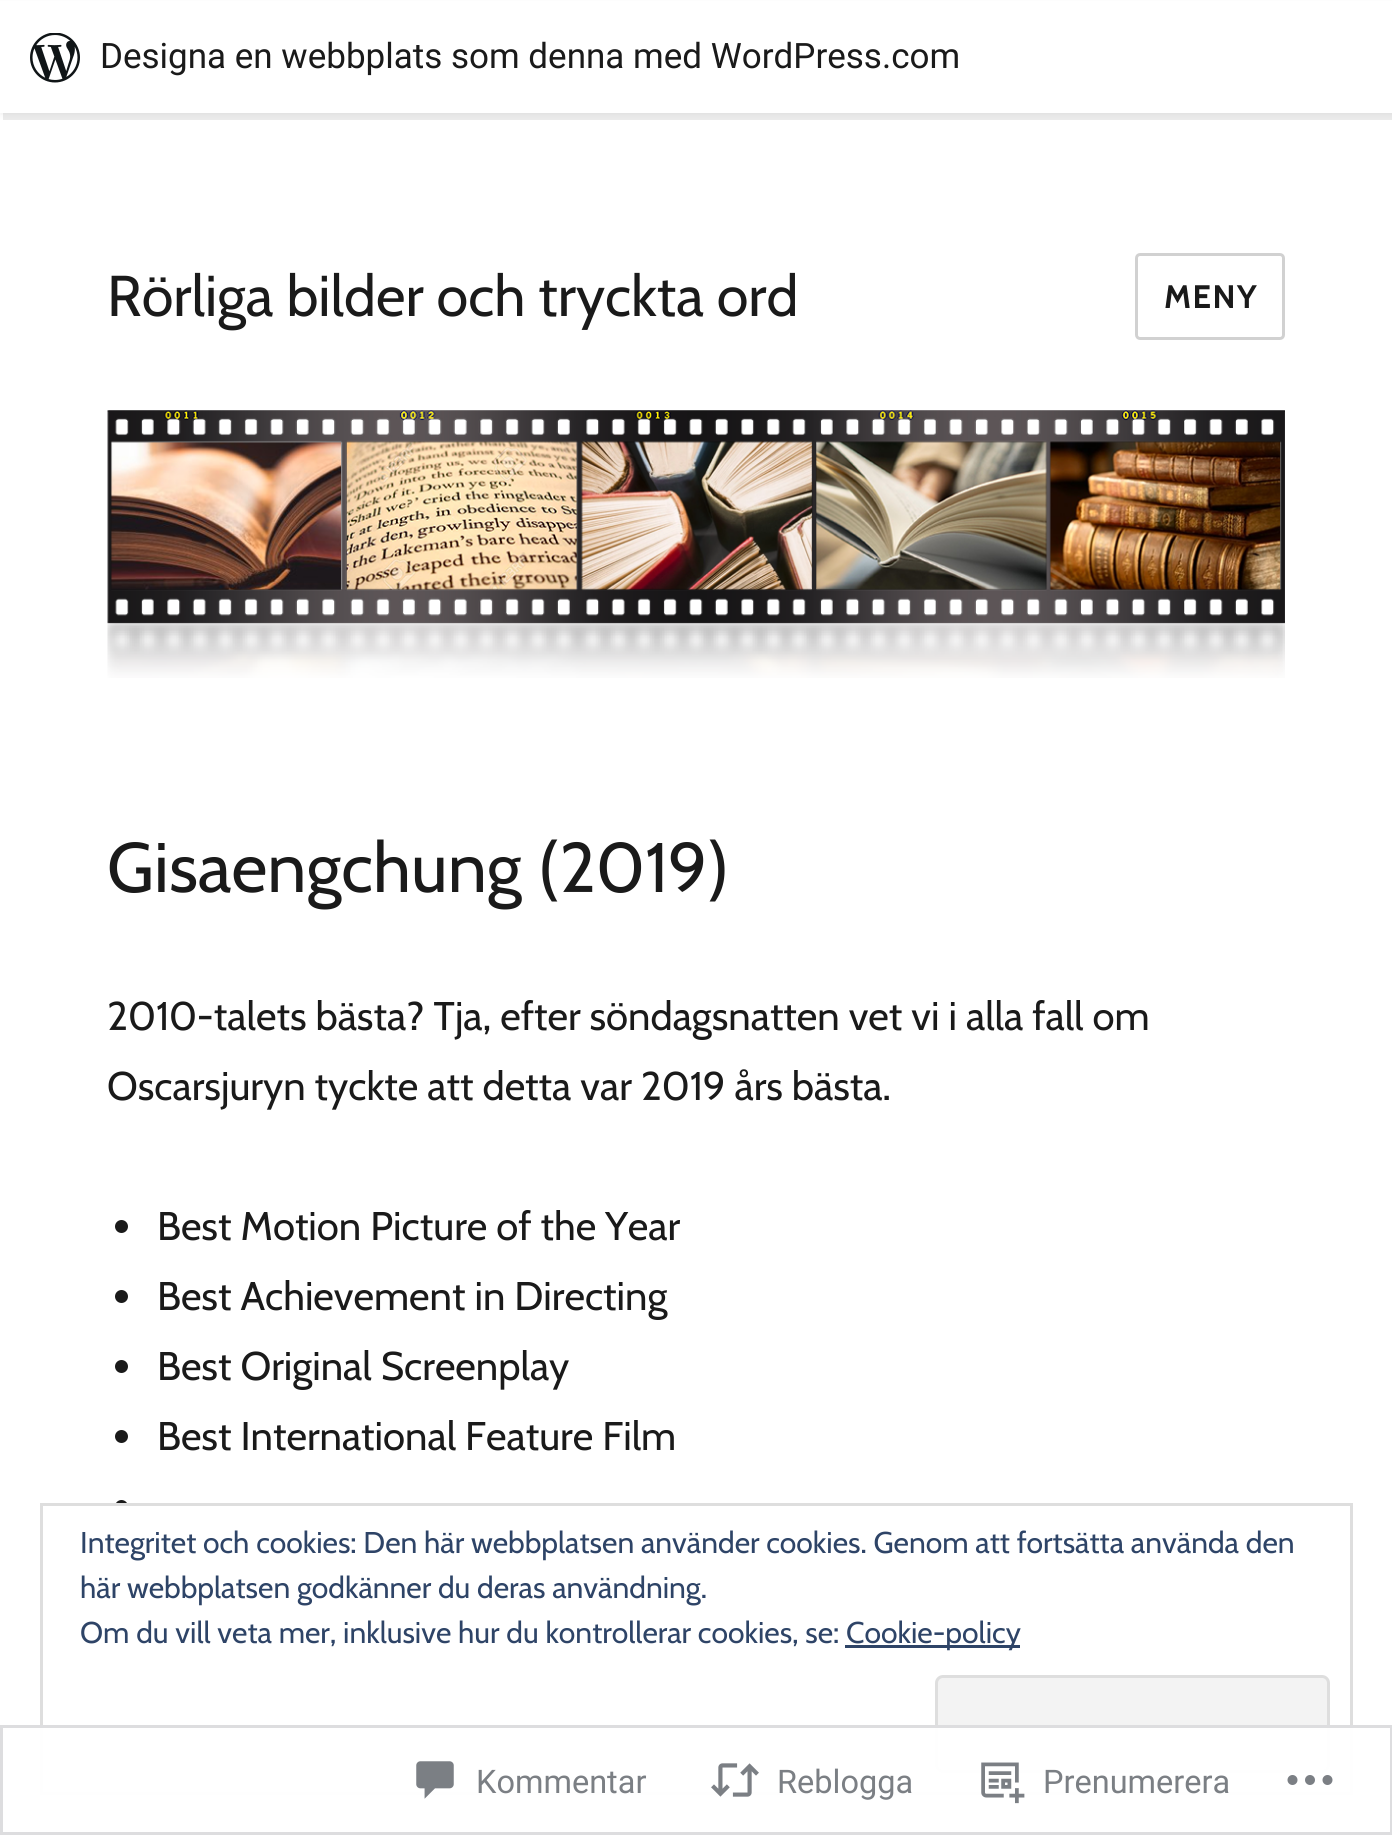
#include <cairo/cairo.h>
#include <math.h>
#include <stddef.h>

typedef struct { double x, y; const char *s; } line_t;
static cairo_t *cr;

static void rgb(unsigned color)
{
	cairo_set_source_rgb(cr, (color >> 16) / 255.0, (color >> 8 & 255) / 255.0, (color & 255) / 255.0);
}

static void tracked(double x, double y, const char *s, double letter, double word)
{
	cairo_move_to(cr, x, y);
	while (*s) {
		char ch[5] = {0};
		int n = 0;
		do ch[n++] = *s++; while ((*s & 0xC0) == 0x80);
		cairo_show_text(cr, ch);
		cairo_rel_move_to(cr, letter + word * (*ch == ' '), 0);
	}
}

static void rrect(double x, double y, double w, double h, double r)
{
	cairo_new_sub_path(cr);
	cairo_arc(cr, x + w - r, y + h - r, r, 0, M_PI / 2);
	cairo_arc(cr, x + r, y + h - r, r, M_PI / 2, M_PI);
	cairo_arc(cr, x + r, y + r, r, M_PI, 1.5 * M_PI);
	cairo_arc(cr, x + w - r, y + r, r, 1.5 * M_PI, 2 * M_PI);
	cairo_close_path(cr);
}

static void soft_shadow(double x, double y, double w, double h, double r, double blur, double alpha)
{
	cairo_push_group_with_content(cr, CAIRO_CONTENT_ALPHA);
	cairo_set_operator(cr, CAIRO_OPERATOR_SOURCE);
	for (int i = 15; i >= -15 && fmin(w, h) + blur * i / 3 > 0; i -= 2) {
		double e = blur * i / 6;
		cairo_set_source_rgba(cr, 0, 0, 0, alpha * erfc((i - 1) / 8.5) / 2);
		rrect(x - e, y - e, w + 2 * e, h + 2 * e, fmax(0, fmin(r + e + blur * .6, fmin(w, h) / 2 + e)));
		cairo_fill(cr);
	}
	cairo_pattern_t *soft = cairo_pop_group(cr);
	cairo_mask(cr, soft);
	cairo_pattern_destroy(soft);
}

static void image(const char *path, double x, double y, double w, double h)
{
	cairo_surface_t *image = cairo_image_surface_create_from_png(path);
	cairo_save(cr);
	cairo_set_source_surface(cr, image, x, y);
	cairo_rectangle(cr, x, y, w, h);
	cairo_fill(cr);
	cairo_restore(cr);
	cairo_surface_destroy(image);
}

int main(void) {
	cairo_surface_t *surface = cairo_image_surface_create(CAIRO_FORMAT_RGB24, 1392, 1835);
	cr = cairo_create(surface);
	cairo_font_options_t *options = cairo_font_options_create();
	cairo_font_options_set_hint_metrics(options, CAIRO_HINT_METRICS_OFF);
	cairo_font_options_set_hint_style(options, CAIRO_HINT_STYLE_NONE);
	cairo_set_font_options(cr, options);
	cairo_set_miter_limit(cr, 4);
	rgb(0xffffff);
	cairo_paint(cr);
	rgb(0x000000);
	soft_shadow(0, 3, 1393, 112, 0, 2.5, 0.05);
	cairo_set_source_rgba(cr, 0, 0, 0, 0.08);
	cairo_new_path(cr);
	cairo_move_to(cr, 3, 112);
	cairo_line_to(cr, 3, 120);
	cairo_line_to(cr, 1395, 120);
	cairo_line_to(cr, 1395, 8);
	cairo_line_to(cr, 1392, 8);
	cairo_line_to(cr, 1392, 112);
	cairo_close_path(cr);
	cairo_fill(cr);
	rgb(0xffffff);
	cairo_rectangle(cr, 0, 1, 1392, 112);
	cairo_fill(cr);
	image("img/1.png", 30, 33, 50, 50);
	rrect(1136.5, 254.5, 147, 84, 3.5);
	rgb(0xd1d1d1);
	cairo_set_line_width(cr, 3);
	cairo_stroke(cr);
	image("img/2.png", 107, 410, 1178, 268);
	rgb(0x1a1a1a);
	cairo_arc(cr, 121.5, 1226.5, 6.5, 0, 2 * M_PI);
	cairo_fill(cr);
	cairo_arc(cr, 121.5, 1296.5, 6.5, 0, 2 * M_PI);
	cairo_fill(cr);
	cairo_arc(cr, 121.5, 1366.5, 6.5, 0, 2 * M_PI);
	cairo_fill(cr);
	cairo_arc(cr, 121.5, 1436.5, 6.5, 0, 2 * M_PI);
	cairo_fill(cr);
	cairo_arc(cr, 121.5, 1506.5, 6.5, 0, 2 * M_PI);
	cairo_fill(cr);
	rgb(0xffffff);
	cairo_rectangle(cr, 115, 1506, 13, 7);
	cairo_fill(cr);
	cairo_rectangle(cr, 41.5, 1504.5, 1310, 289);
	rgb(0xdedede);
	cairo_stroke(cr);
	rgb(0x2e4467);
	cairo_rectangle(cr, 845, 1645, 175, 3);
	cairo_fill(cr);
	rgb(0xf3f3f3);
	rrect(936.5, 1676.5, 392, 95, 6.5);
	cairo_fill_preserve(cr);
	rgb(0xdedede);
	cairo_stroke(cr);
	cairo_set_source_rgba(cr, 1, 1, 1, 0.98);
	cairo_rectangle(cr, 40, 1725, 1313, 70);
	cairo_fill(cr);
	cairo_rectangle(cr, 1.5, 1726.5, 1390, 107);
	cairo_set_source_rgba(cr, 0.863, 0.863, 0.871, 0.98);
	cairo_stroke(cr);
	image("img/3.png", 416, 1761, 38, 38);
	image("img/4.png", 711, 1763, 48, 34);
	image("img/5.png", 981, 1762, 44, 42);
	image("img/6.png", 1287, 1775, 46, 10);
	cairo_select_font_face(cr, "Roboto", CAIRO_FONT_SLANT_NORMAL, CAIRO_FONT_WEIGHT_NORMAL);
	cairo_set_font_size(cr, 35);
	rgb(0x1a1a1a);
	cairo_move_to(cr, 100, 68);
	cairo_show_text(cr, "Designa en webbplats som denna med WordPress.com");
	cairo_select_font_face(cr, "Cabin", CAIRO_FONT_SLANT_NORMAL, CAIRO_FONT_WEIGHT_NORMAL);
	cairo_set_font_size(cr, 57.5);
	cairo_move_to(cr, 107, 316);
	cairo_show_text(cr, "Rörliga bilder och tryckta ord");
	cairo_select_font_face(cr, "Cabin", CAIRO_FONT_SLANT_NORMAL, CAIRO_FONT_WEIGHT_BOLD);
	cairo_set_font_size(cr, 32.5);
	tracked(1164, 308, "MENY", 1.5, 0);
	cairo_select_font_face(cr, "Cabin", CAIRO_FONT_SLANT_NORMAL, CAIRO_FONT_WEIGHT_NORMAL);
	cairo_set_font_size(cr, 70);
	cairo_move_to(cr, 107, 892);
	cairo_show_text(cr, "Gisaengchung (2019)");
	cairo_set_font_size(cr, 40);
	{
		static const line_t items[] = {
			{107, 1030, "2010-talets bästa? Tja, efter söndagsnatten vet vi i alla fall om"},
			{107, 1100, "Oscarsjuryn tyckte att detta var 2019 års bästa."},
			{157, 1240, "Best Motion Picture of the Year"},
			{157, 1310, "Best Achievement in Directing"},
			{157, 1380, "Best Original Screenplay"},
			{157, 1450, "Best International Feature Film"},
		};
		for (size_t i = 0; i < sizeof items / sizeof *items; i++) {
			cairo_move_to(cr, items[i].x, items[i].y);
			cairo_show_text(cr, items[i].s);
		}
	}
	cairo_set_font_size(cr, 30);
	rgb(0x2e4467);
	{
		static const line_t items[] = {
			{80, 1553, "Integritet och cookies: Den här webbplatsen använder cookies. Genom att fortsätta använda den"},
			{80, 1598, "här webbplatsen godkänner du deras användning."},
			{80, 1643, "Om du vill veta mer, inklusive hur du kontrollerar cookies, se:"},
			{846, 1643, "Cookie-policy"},
		};
		for (size_t i = 0; i < sizeof items / sizeof *items; i++) {
			cairo_move_to(cr, items[i].x, items[i].y);
			cairo_show_text(cr, items[i].s);
		}
	}
	cairo_select_font_face(cr, "Roboto", CAIRO_FONT_SLANT_NORMAL, CAIRO_FONT_WEIGHT_NORMAL);
	cairo_set_font_size(cr, 32.5);
	rgb(0x7b7f84);
	{
		static const line_t items[] = {
			{476, 1793, "Kommentar"},
			{777, 1793, "Reblogga"},
			{1043, 1793, "Prenumerera"},
		};
		for (size_t i = 0; i < sizeof items / sizeof *items; i++) {
			cairo_move_to(cr, items[i].x, items[i].y);
			cairo_show_text(cr, items[i].s);
		}
	}
	cairo_surface_write_to_png(surface, "page.png");
	cairo_font_options_destroy(options);
	cairo_destroy(cr);
	cairo_surface_destroy(surface);
	return 0;
}
